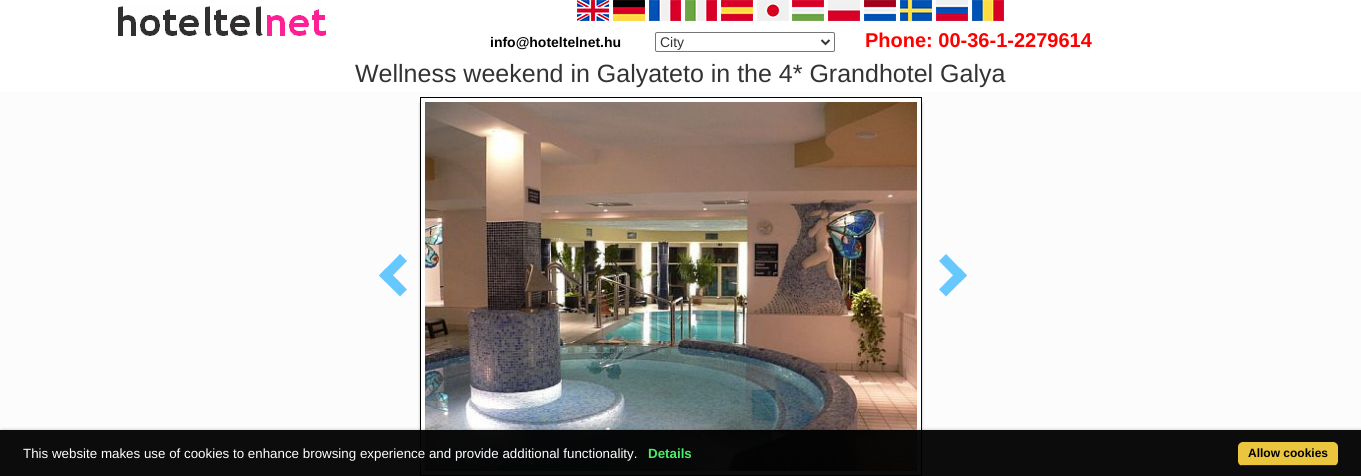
#include <cairo/cairo.h>
#include <math.h>
#include <stddef.h>

static cairo_t *cr;

static void rgb(unsigned color)
{
	cairo_set_source_rgb(cr, (color >> 16) / 255.0, (color >> 8 & 255) / 255.0, (color & 255) / 255.0);
}

static void rrect(double x, double y, double w, double h, double r)
{
	cairo_new_sub_path(cr);
	cairo_arc(cr, x + w - r, y + h - r, r, 0, M_PI / 2);
	cairo_arc(cr, x + r, y + h - r, r, M_PI / 2, M_PI);
	cairo_arc(cr, x + r, y + r, r, M_PI, 1.5 * M_PI);
	cairo_arc(cr, x + w - r, y + r, r, 1.5 * M_PI, 2 * M_PI);
	cairo_close_path(cr);
}

static void soft_shadow(double x, double y, double w, double h, double r, double blur, double alpha)
{
	cairo_push_group_with_content(cr, CAIRO_CONTENT_ALPHA);
	cairo_set_operator(cr, CAIRO_OPERATOR_SOURCE);
	for (int i = 15; i >= -15 && fmin(w, h) + blur * i / 3 > 0; i -= 2) {
		double e = blur * i / 6;
		cairo_set_source_rgba(cr, 0, 0, 0, alpha * erfc((i - 1) / 8.5) / 2);
		rrect(x - e, y - e, w + 2 * e, h + 2 * e, fmax(0, fmin(r + e + blur * .6, fmin(w, h) / 2 + e)));
		cairo_fill(cr);
	}
	cairo_pattern_t *soft = cairo_pop_group(cr);
	cairo_mask(cr, soft);
	cairo_pattern_destroy(soft);
}

static void image(const char *path, double x, double y, double w, double h)
{
	cairo_surface_t *image = cairo_image_surface_create_from_png(path);
	cairo_save(cr);
	cairo_set_source_surface(cr, image, x, y);
	cairo_rectangle(cr, x, y, w, h);
	cairo_fill(cr);
	cairo_restore(cr);
	cairo_surface_destroy(image);
}

int main(void) {
	cairo_surface_t *surface = cairo_image_surface_create(CAIRO_FORMAT_RGB24, 1361, 476);
	cr = cairo_create(surface);
	cairo_font_options_t *options = cairo_font_options_create();
	cairo_font_options_set_hint_metrics(options, CAIRO_HINT_METRICS_OFF);
	cairo_font_options_set_hint_style(options, CAIRO_HINT_STYLE_NONE);
	cairo_set_font_options(cr, options);
	cairo_set_miter_limit(cr, 4);
	rgb(0xffffff);
	cairo_paint(cr);
	image("img/1.png", 118, 6, 208, 30);
	image("img/2.png", 577, 0, 32, 21);
	image("img/3.png", 613, 0, 32, 21);
	image("img/4.png", 649, 0, 32, 21);
	image("img/5.png", 685, 0, 32, 21);
	image("img/6.png", 721, 0, 32, 21);
	image("img/7.png", 757, 0, 32, 21);
	image("img/8.png", 792, 0, 32, 21);
	image("img/9.png", 828, 0, 32, 21);
	image("img/10.png", 864, 0, 32, 21);
	image("img/11.png", 900, 0, 32, 21);
	image("img/12.png", 936, 0, 32, 21);
	image("img/13.png", 972, 0, 32, 21);
	rrect(655.5, 32.5, 179, 19, 1.5);
	rgb(0x767676);
	cairo_set_line_width(cr, 1);
	cairo_stroke(cr);
	cairo_new_path(cr);
	cairo_move_to(cr, 821.5, 40);
	cairo_line_to(cr, 825.5, 44);
	cairo_line_to(cr, 829.5, 40);
	rgb(0x333333);
	cairo_set_line_width(cr, 2);
	cairo_stroke(cr);
	rgb(0xfcfcfc);
	cairo_rectangle(cr, 0, 92, 1361, 384);
	cairo_fill(cr);
	rgb(0x000000);
	soft_shadow(421, 103, 500, 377, 0, 1.5, 0.55);
	cairo_rectangle(cr, 423, 100, 496, 373);
	rgb(0xffffff);
	cairo_set_line_width(cr, 4);
	cairo_stroke(cr);
	image("img/14.png", 425, 102, 492, 369);
	cairo_rectangle(cr, 420.5, 97.5, 501, 378);
	rgb(0x000000);
	cairo_set_line_width(cr, 1);
	cairo_stroke(cr);
	rgb(0x67c8ff);
	cairo_new_path(cr);
	cairo_move_to(cr, 407, 289.5);
	cairo_line_to(cr, 400, 296.5);
	cairo_line_to(cr, 379, 275.5);
	cairo_line_to(cr, 386, 268);
	cairo_close_path(cr);
	cairo_fill(cr);
	cairo_new_path(cr);
	cairo_move_to(cr, 407, 261);
	cairo_line_to(cr, 386, 282.5);
	cairo_line_to(cr, 379, 275.5);
	cairo_line_to(cr, 400, 254);
	cairo_close_path(cr);
	cairo_fill(cr);
	cairo_new_path(cr);
	cairo_move_to(cr, 939, 261);
	cairo_line_to(cr, 946, 254);
	cairo_line_to(cr, 967, 275.5);
	cairo_line_to(cr, 960, 282.5);
	cairo_close_path(cr);
	cairo_fill(cr);
	cairo_new_path(cr);
	cairo_move_to(cr, 939, 289.5);
	cairo_line_to(cr, 960, 268);
	cairo_line_to(cr, 967, 275.5);
	cairo_line_to(cr, 946, 296.5);
	cairo_close_path(cr);
	cairo_fill(cr);
	cairo_save(cr);
	cairo_rectangle(cr, 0, 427, 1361, 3);
	cairo_clip(cr);
	rgb(0x000000);
	soft_shadow(2, 432, 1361, 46, 0, 2.5, 0.6);
	cairo_restore(cr);
	cairo_set_source_rgba(cr, 0, 0, 0, 0.95);
	cairo_rectangle(cr, 0, 430, 1361, 46);
	cairo_fill(cr);
	rgb(0xeac53e);
	rrect(1238, 442, 100, 24, 5);
	cairo_fill(cr);
	rgb(0x222222);
	cairo_rectangle(cr, 1241, 465, 95, 1);
	cairo_fill(cr);
	cairo_select_font_face(cr, "Liberation Sans", CAIRO_FONT_SLANT_NORMAL, CAIRO_FONT_WEIGHT_BOLD);
	cairo_set_font_size(cr, 14);
	rgb(0x000000);
	cairo_move_to(cr, 490, 47);
	cairo_show_text(cr, "info@hoteltelnet.hu");
	cairo_select_font_face(cr, "Liberation Sans", CAIRO_FONT_SLANT_NORMAL, CAIRO_FONT_WEIGHT_NORMAL);
	rgb(0x333333);
	cairo_move_to(cr, 660, 47);
	cairo_show_text(cr, "City");
	cairo_select_font_face(cr, "Liberation Sans", CAIRO_FONT_SLANT_NORMAL, CAIRO_FONT_WEIGHT_BOLD);
	cairo_set_font_size(cr, 20);
	rgb(0xff0000);
	cairo_move_to(cr, 865, 47);
	cairo_show_text(cr, "Phone: 00-36-1-2279614");
	cairo_select_font_face(cr, "Liberation Sans", CAIRO_FONT_SLANT_NORMAL, CAIRO_FONT_WEIGHT_NORMAL);
	cairo_set_font_size(cr, 25);
	rgb(0x333333);
	cairo_move_to(cr, 355, 82);
	cairo_show_text(cr, "Wellness weekend in Galyateto in the 4* Grandhotel Galya");
	cairo_set_font_size(cr, 13.35);
	rgb(0xffffff);
	cairo_move_to(cr, 23, 458);
	cairo_show_text(cr, "This website makes use of cookies to enhance browsing experience and provide additional functionality.");
	cairo_select_font_face(cr, "Liberation Sans", CAIRO_FONT_SLANT_NORMAL, CAIRO_FONT_WEIGHT_BOLD);
	rgb(0x4bec69);
	cairo_move_to(cr, 648, 458);
	cairo_show_text(cr, "Details");
	cairo_set_font_size(cr, 12);
	rgb(0x000000);
	cairo_move_to(cr, 1248, 457);
	cairo_show_text(cr, "Allow cookies");
	cairo_surface_write_to_png(surface, "page.png");
	cairo_font_options_destroy(options);
	cairo_destroy(cr);
	cairo_surface_destroy(surface);
	return 0;
}
